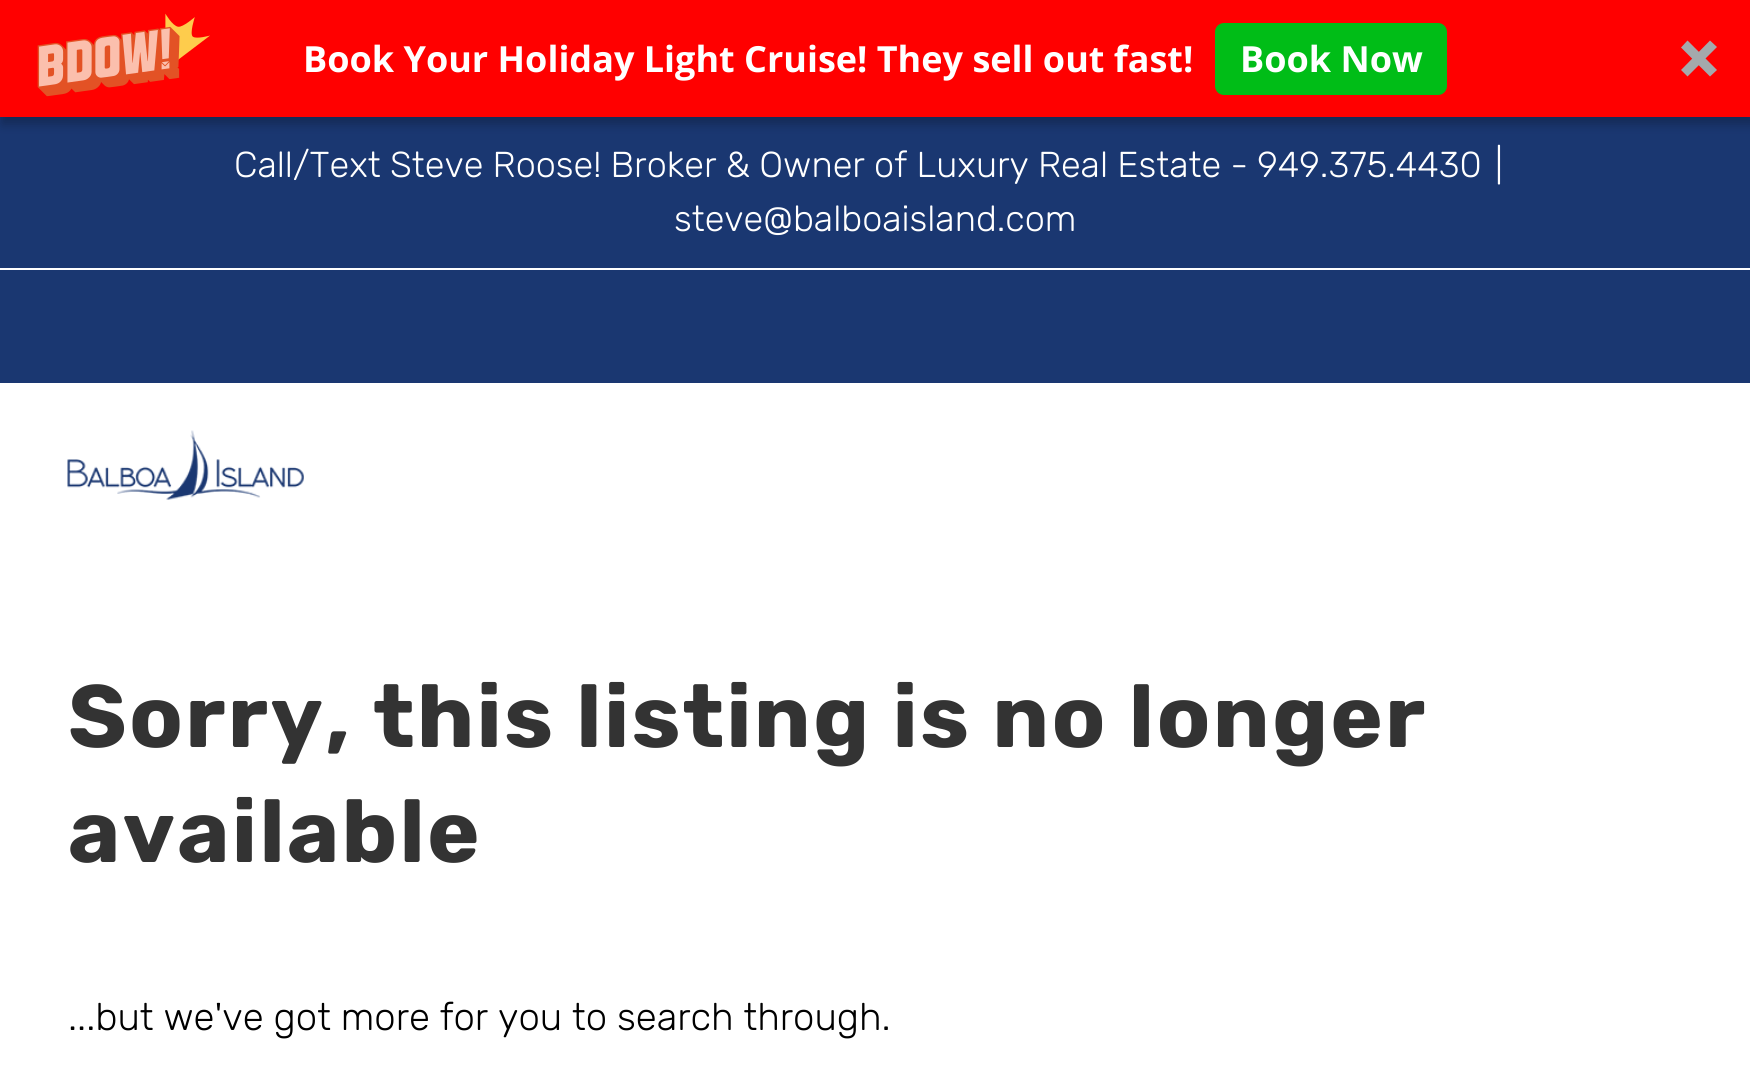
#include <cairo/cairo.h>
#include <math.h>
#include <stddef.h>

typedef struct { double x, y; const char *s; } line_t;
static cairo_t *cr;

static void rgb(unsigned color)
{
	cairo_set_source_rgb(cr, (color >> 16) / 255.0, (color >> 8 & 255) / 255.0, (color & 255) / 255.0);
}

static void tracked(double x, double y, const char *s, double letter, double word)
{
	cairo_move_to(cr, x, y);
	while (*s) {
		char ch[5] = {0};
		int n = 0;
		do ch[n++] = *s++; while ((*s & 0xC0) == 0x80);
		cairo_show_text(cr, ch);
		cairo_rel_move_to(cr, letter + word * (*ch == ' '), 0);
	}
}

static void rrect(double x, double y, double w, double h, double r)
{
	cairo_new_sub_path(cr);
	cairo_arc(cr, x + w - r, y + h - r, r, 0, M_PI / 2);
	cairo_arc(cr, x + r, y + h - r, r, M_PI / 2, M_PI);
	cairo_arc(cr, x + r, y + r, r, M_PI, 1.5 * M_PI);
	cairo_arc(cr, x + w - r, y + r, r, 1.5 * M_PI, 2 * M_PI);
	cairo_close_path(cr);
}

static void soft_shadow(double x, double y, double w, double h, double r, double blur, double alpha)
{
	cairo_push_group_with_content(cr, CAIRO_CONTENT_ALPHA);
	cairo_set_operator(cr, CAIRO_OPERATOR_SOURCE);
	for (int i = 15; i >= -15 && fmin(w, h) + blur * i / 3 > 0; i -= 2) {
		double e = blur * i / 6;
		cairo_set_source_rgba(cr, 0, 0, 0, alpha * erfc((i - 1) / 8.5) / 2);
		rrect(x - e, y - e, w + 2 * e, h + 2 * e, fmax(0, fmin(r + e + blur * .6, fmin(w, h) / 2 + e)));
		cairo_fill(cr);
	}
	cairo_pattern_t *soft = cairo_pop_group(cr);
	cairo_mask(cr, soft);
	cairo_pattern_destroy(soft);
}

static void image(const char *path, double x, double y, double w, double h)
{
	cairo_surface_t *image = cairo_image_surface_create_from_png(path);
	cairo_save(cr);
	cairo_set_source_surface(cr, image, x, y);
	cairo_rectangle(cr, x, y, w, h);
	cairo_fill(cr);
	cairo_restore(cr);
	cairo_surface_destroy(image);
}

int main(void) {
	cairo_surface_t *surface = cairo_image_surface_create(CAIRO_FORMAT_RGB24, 1750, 1078);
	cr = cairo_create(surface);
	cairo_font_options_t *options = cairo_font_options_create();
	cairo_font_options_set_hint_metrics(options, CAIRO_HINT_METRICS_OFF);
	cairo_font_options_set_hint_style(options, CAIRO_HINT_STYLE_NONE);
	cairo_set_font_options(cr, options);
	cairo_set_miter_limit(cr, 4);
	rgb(0xffffff);
	cairo_paint(cr);
	rgb(0x1a3771);
	cairo_rectangle(cr, 0, 117, 1750, 266);
	cairo_fill(cr);
	rgb(0x000000);
	soft_shadow(2, 7, 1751, 117, 0, 5.5, 0.25);
	rgb(0xff0000);
	cairo_rectangle(cr, 0, 0, 1750, 117);
	cairo_fill(cr);
	image("img/1.png", 37, 13, 173, 84);
	rgb(0x00bd17);
	rrect(1215, 23, 232, 72, 9);
	cairo_fill(cr);
	rgb(0xa4a9ac);
	cairo_new_path(cr);
	cairo_move_to(cr, 1710, 40.5);
	cairo_line_to(cr, 1717, 47);
	cairo_line_to(cr, 1687.5, 76.5);
	cairo_line_to(cr, 1681, 70);
	cairo_close_path(cr);
	cairo_fill(cr);
	cairo_new_path(cr);
	cairo_move_to(cr, 1717, 70);
	cairo_line_to(cr, 1710, 76.5);
	cairo_line_to(cr, 1681, 47.5);
	cairo_line_to(cr, 1687.5, 40.5);
	cairo_close_path(cr);
	cairo_fill(cr);
	rgb(0xffffff);
	cairo_rectangle(cr, 0, 268, 1750, 2);
	cairo_fill(cr);
	image("img/2.png", 67, 430, 237, 70);
	cairo_select_font_face(cr, "Open Sans", CAIRO_FONT_SLANT_NORMAL, CAIRO_FONT_WEIGHT_BOLD);
	cairo_set_font_size(cr, 36);
	cairo_move_to(cr, 303, 72);
	cairo_show_text(cr, "Book Your Holiday Light Cruise! They sell out fast!");
	cairo_move_to(cr, 1240, 72);
	cairo_show_text(cr, "Book Now");
	cairo_select_font_face(cr, "Rubik Light", CAIRO_FONT_SLANT_NORMAL, CAIRO_FONT_WEIGHT_NORMAL);
	{
		static const line_t items[] = {
			{234, 177, "Call/Text Steve Roose! Broker & Owner of Luxury Real Estate - 949.375.4430"},
			{1495, 177, "|"},
			{674, 231, "steve@balboaisland.com"},
		};
		for (size_t i = 0; i < sizeof items / sizeof *items; i++) {
			cairo_move_to(cr, items[i].x, items[i].y);
			cairo_show_text(cr, items[i].s);
		}
	}
	cairo_select_font_face(cr, "Rubik", CAIRO_FONT_SLANT_NORMAL, CAIRO_FONT_WEIGHT_BOLD);
	cairo_set_font_size(cr, 88.5);
	rgb(0x333333);
	tracked(68, 747, "Sorry, this listing is no longer", 2.25, 0);
	tracked(68, 862, "available", 2.25, 0);
	cairo_select_font_face(cr, "Rubik Light", CAIRO_FONT_SLANT_NORMAL, CAIRO_FONT_WEIGHT_NORMAL);
	cairo_set_font_size(cr, 38.25);
	rgb(0x000000);
	cairo_move_to(cr, 68, 1030);
	cairo_show_text(cr, "...but we've got more for you to search through.");
	cairo_surface_write_to_png(surface, "page.png");
	cairo_font_options_destroy(options);
	cairo_destroy(cr);
	cairo_surface_destroy(surface);
	return 0;
}
